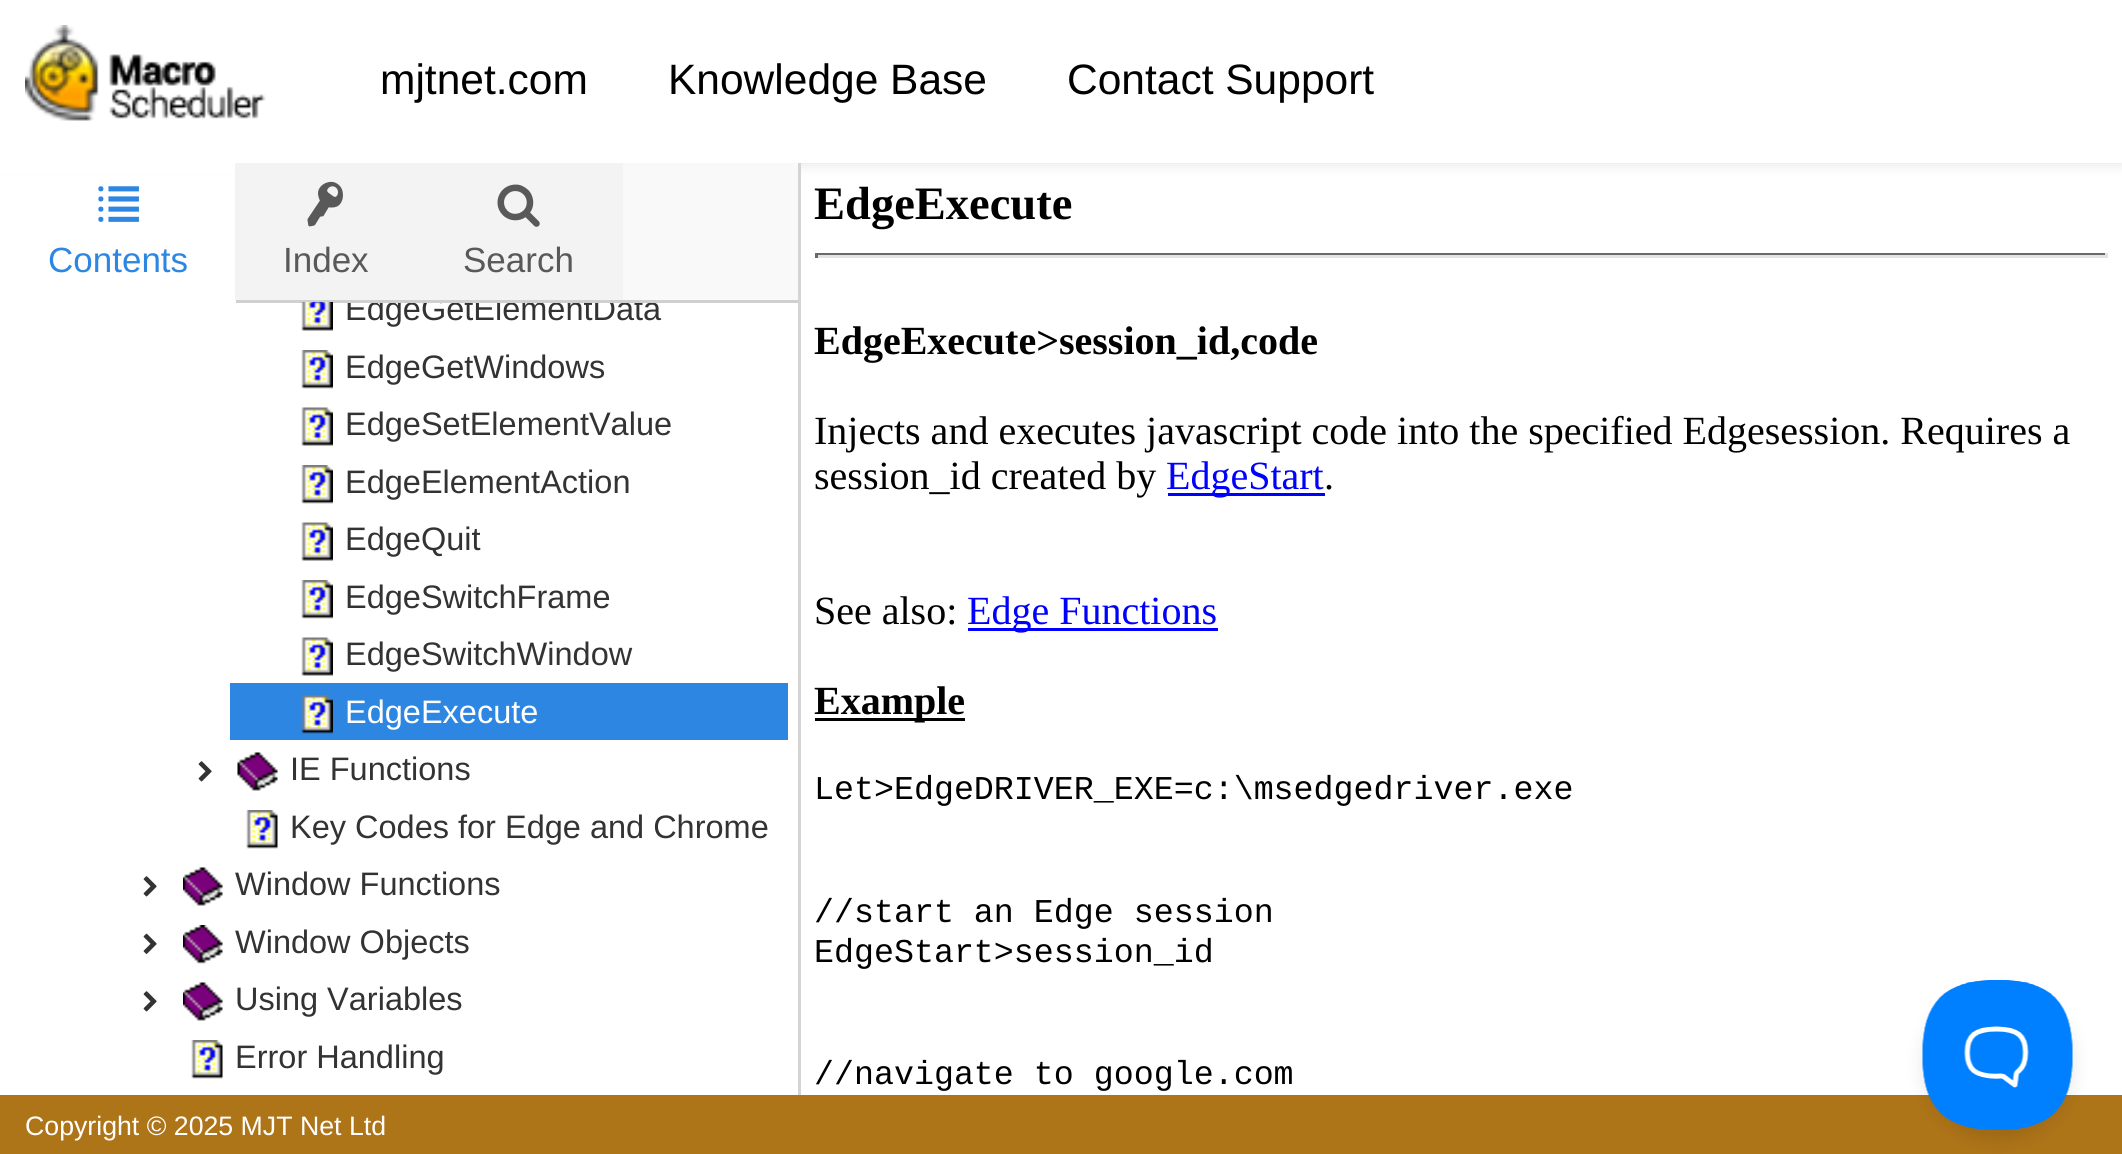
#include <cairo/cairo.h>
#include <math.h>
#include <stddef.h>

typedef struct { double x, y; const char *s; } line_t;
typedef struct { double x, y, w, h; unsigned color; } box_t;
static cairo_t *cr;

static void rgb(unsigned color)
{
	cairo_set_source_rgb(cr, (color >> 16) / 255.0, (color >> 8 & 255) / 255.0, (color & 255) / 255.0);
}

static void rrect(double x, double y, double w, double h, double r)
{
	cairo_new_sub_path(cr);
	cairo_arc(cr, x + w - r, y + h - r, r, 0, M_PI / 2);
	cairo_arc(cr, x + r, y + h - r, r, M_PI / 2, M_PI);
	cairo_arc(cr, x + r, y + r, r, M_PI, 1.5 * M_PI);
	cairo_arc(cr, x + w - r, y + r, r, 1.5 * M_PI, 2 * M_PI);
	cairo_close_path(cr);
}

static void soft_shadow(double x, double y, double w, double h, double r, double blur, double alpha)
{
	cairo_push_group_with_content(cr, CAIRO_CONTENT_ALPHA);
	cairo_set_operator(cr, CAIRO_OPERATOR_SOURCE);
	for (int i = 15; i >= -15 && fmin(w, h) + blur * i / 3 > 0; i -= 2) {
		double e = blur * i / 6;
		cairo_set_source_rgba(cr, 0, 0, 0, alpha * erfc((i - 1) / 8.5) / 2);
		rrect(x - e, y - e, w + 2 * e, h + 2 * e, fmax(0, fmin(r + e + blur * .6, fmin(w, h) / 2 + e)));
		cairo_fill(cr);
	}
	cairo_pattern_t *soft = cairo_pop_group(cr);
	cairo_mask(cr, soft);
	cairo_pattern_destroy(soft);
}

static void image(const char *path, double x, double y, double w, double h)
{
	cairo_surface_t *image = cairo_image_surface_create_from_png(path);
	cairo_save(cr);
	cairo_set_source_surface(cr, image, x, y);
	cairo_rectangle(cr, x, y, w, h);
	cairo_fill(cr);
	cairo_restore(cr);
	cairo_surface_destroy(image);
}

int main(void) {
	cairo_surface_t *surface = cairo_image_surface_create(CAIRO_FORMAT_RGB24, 2122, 1154);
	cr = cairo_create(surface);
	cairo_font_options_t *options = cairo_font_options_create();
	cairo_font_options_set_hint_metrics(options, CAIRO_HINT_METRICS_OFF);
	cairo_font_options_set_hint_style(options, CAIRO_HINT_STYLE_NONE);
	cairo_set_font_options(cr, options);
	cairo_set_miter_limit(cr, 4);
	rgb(0xffffff);
	cairo_paint(cr);
	rgb(0x000000);
	soft_shadow(0, 3, 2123, 162, 0, 6, 0.1);
	rgb(0xffffff);
	cairo_rectangle(cr, 0, 0, 2122, 163);
	cairo_fill(cr);
	image("img/1.png", 25, 25, 241, 96);
	{
		static const box_t items[] = {
			{798, 163, 3, 932, 0xd4d4d4},
			{623, 163, 175, 137, 0xf9f9f9},
			{236, 300, 562, 3, 0xd0d0d0},
			{0, 163, 236, 10, 0xffffff},
		};
		for (size_t i = 0; i < sizeof items / sizeof *items; i++) {
			rgb(items[i].color);
			cairo_rectangle(cr, items[i].x, items[i].y, items[i].w, items[i].h);
			cairo_fill(cr);
		}
	}
	image("img/2.png", 98, 186, 41, 36);
	rgb(0xf3f3f3);
	cairo_rectangle(cr, 235, 163, 388, 137);
	cairo_fill(cr);
	image("img/3.png", 307, 181, 36, 46);
	image("img/4.png", 497, 184, 43, 43);
	image("img/5.png", 301, 302, 32, 29);
	image("img/6.png", 301, 350, 32, 39);
	image("img/7.png", 301, 407, 32, 39);
	image("img/6.png", 301, 465, 32, 39);
	image("img/7.png", 301, 522, 32, 39);
	image("img/6.png", 301, 580, 32, 39);
	image("img/7.png", 301, 637, 32, 39);
	rgb(0x2d87e2);
	cairo_rectangle(cr, 230, 683, 558, 57);
	cairo_fill(cr);
	image("img/8.png", 301, 695, 32, 39);
	image("img/9.png", 198, 761, 14, 21);
	image("img/10.png", 237, 752, 41, 39);
	image("img/11.png", 246, 810, 32, 39);
	image("img/9.png", 143, 876, 14, 21);
	image("img/12.png", 183, 867, 40, 39);
	image("img/13.png", 143, 933, 14, 21);
	image("img/14.png", 183, 925, 40, 39);
	image("img/9.png", 143, 991, 14, 21);
	image("img/12.png", 183, 982, 40, 39);
	image("img/11.png", 191, 1040, 32, 39);
	{
		static const box_t items[] = {
			{815, 253, 1293, 2, 0x696969},
			{2105, 253, 3, 5, 0xe3e3e3},
			{815, 255, 1293, 3, 0xe3e3e3},
			{815, 253, 3, 5, 0x696969},
			{1168, 493, 157, 3, 0x0000ff},
			{968, 628, 250, 3, 0x0000ff},
			{815, 718, 150, 3, 0x000000},
			{0, 1095, 2122, 59, 0xae7418},
		};
		for (size_t i = 0; i < sizeof items / sizeof *items; i++) {
			rgb(items[i].color);
			cairo_rectangle(cr, items[i].x, items[i].y, items[i].w, items[i].h);
			cairo_fill(cr);
		}
	}
	rgb(0x000000);
	soft_shadow(1923, 990, 150, 150, 75, 9, 0.1);
	image("img/15.png", 1922, 980, 151, 150);
	cairo_select_font_face(cr, "Liberation Sans", CAIRO_FONT_SLANT_NORMAL, CAIRO_FONT_WEIGHT_NORMAL);
	cairo_set_font_size(cr, 42.5);
	rgb(0x000000);
	{
		static const line_t items[] = {
			{380, 94, "mjtnet.com"},
			{668, 94, "Knowledge Base"},
			{1067, 94, "Contact Support"},
		};
		for (size_t i = 0; i < sizeof items / sizeof *items; i++) {
			cairo_move_to(cr, items[i].x, items[i].y);
			cairo_show_text(cr, items[i].s);
		}
	}
	cairo_set_font_size(cr, 35);
	rgb(0x2d87e2);
	cairo_move_to(cr, 48, 272);
	cairo_show_text(cr, "Contents");
	rgb(0x595959);
	cairo_move_to(cr, 283, 272);
	cairo_show_text(cr, "Index");
	cairo_move_to(cr, 463, 272);
	cairo_show_text(cr, "Search");
	cairo_save(cr);
	cairo_rectangle(cr, 0, 303, 798, 792);
	cairo_clip(cr);
	cairo_set_font_size(cr, 32.5);
	rgb(0x333333);
	cairo_move_to(cr, 345, 320);
	cairo_show_text(cr, "EdgeGetElementData");
	cairo_restore(cr);
	cairo_set_font_size(cr, 32.5);
	rgb(0x333333);
	{
		static const line_t items[] = {
			{345, 378, "EdgeGetWindows"},
			{345, 435, "EdgeSetElementValue"},
			{345, 493, "EdgeElementAction"},
			{345, 550, "EdgeQuit"},
			{345, 608, "EdgeSwitchFrame"},
			{345, 665, "EdgeSwitchWindow"},
		};
		for (size_t i = 0; i < sizeof items / sizeof *items; i++) {
			cairo_move_to(cr, items[i].x, items[i].y);
			cairo_show_text(cr, items[i].s);
		}
	}
	rgb(0xffffff);
	cairo_move_to(cr, 345, 723);
	cairo_show_text(cr, "EdgeExecute");
	rgb(0x333333);
	{
		static const line_t items[] = {
			{290, 780, "IE Functions"},
			{290, 838, "Key Codes for Edge and Chrome"},
			{235, 895, "Window Functions"},
			{235, 953, "Window Objects"},
			{235, 1010, "Using Variables"},
			{235, 1068, "Error Handling"},
		};
		for (size_t i = 0; i < sizeof items / sizeof *items; i++) {
			cairo_move_to(cr, items[i].x, items[i].y);
			cairo_show_text(cr, items[i].s);
		}
	}
	cairo_select_font_face(cr, "Liberation Serif", CAIRO_FONT_SLANT_NORMAL, CAIRO_FONT_WEIGHT_BOLD);
	cairo_set_font_size(cr, 46.5);
	rgb(0x000000);
	cairo_move_to(cr, 814, 219);
	cairo_show_text(cr, "EdgeExecute");
	cairo_set_font_size(cr, 40);
	cairo_move_to(cr, 814, 354);
	cairo_show_text(cr, "EdgeExecute>session_id,code");
	cairo_select_font_face(cr, "Liberation Serif", CAIRO_FONT_SLANT_NORMAL, CAIRO_FONT_WEIGHT_NORMAL);
	cairo_move_to(cr, 814, 444);
	cairo_show_text(cr, "Injects and executes javascript code into the specified Edgesession. Requires a");
	cairo_move_to(cr, 814, 489);
	cairo_show_text(cr, "session_id created by");
	rgb(0x0000ff);
	cairo_move_to(cr, 1166, 489);
	cairo_show_text(cr, "EdgeStart");
	rgb(0x000000);
	cairo_move_to(cr, 1324, 489);
	cairo_show_text(cr, ".");
	cairo_move_to(cr, 814, 624);
	cairo_show_text(cr, "See also:");
	rgb(0x0000ff);
	cairo_move_to(cr, 967, 624);
	cairo_show_text(cr, "Edge Functions");
	cairo_select_font_face(cr, "Liberation Serif", CAIRO_FONT_SLANT_NORMAL, CAIRO_FONT_WEIGHT_BOLD);
	rgb(0x000000);
	cairo_move_to(cr, 814, 714);
	cairo_show_text(cr, "Example");
	cairo_select_font_face(cr, "Liberation Mono", CAIRO_FONT_SLANT_NORMAL, CAIRO_FONT_WEIGHT_NORMAL);
	cairo_set_font_size(cr, 33.3);
	{
		static const line_t items[] = {
			{814, 799, "Let>EdgeDRIVER_EXE=c:\\msedgedriver.exe"},
			{814, 922, "//start an Edge session"},
			{814, 962, "EdgeStart>session_id"},
			{814, 1084, "//navigate to google.com"},
		};
		for (size_t i = 0; i < sizeof items / sizeof *items; i++) {
			cairo_move_to(cr, items[i].x, items[i].y);
			cairo_show_text(cr, items[i].s);
		}
	}
	cairo_select_font_face(cr, "Liberation Sans", CAIRO_FONT_SLANT_NORMAL, CAIRO_FONT_WEIGHT_NORMAL);
	cairo_set_font_size(cr, 26.7);
	rgb(0xffffff);
	cairo_move_to(cr, 25, 1135);
	cairo_show_text(cr, "Copyright © 2025 MJT Net Ltd");
	cairo_surface_write_to_png(surface, "page.png");
	cairo_font_options_destroy(options);
	cairo_destroy(cr);
	cairo_surface_destroy(surface);
	return 0;
}
